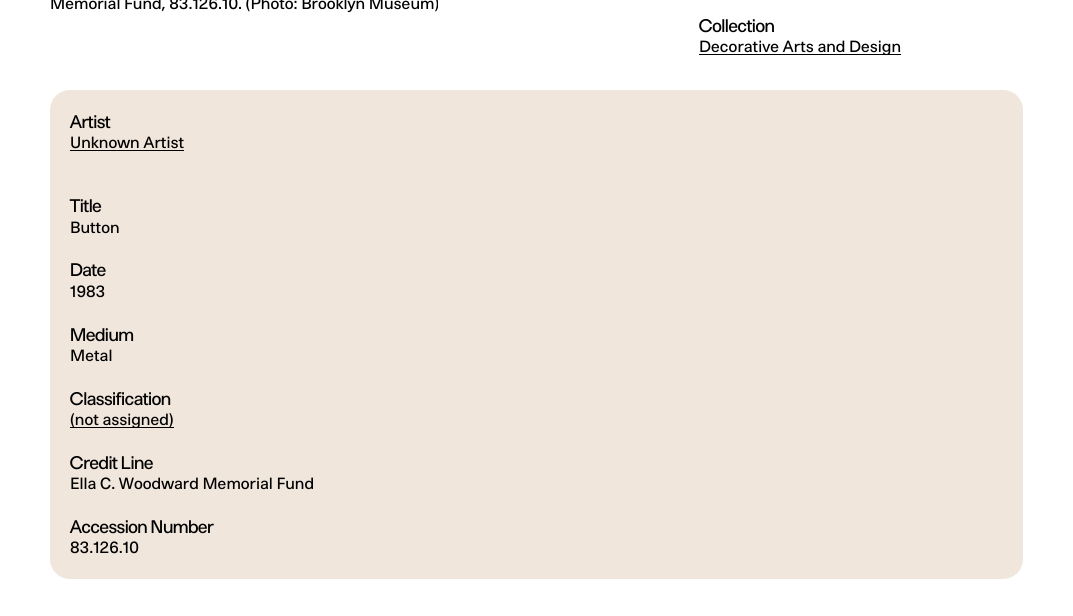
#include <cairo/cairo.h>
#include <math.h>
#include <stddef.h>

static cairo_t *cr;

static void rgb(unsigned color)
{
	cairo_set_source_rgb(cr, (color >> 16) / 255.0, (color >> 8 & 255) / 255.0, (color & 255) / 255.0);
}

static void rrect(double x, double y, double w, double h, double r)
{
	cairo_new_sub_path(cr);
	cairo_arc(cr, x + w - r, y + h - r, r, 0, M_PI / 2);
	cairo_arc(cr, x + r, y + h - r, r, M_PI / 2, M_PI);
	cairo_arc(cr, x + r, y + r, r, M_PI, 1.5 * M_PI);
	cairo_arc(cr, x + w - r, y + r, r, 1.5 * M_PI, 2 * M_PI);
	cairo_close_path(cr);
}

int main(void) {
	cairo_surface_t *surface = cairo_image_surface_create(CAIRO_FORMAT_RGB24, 1073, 616);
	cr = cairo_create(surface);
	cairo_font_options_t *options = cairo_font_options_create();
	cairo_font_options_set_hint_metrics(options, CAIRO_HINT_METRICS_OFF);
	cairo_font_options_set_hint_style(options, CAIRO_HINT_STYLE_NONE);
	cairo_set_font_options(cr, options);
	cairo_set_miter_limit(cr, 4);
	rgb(0xffffff);
	cairo_paint(cr);
	rgb(0x000000);
	cairo_rectangle(cr, 699, 54, 202, 1);
	cairo_fill(cr);
	rgb(0xf0e6dc);
	rrect(50, 90, 973, 489, 20);
	cairo_fill(cr);
	rgb(0x000000);
	cairo_rectangle(cr, 70, 150, 114, 1);
	cairo_fill(cr);
	cairo_rectangle(cr, 70, 427, 104, 1);
	cairo_fill(cr);
	cairo_select_font_face(cr, "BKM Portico", CAIRO_FONT_SLANT_NORMAL, CAIRO_FONT_WEIGHT_NORMAL);
	cairo_set_font_size(cr, 16);
	cairo_move_to(cr, 50, 9);
	cairo_show_text(cr, "Memorial Fund, 83.126.10. (Photo: Brooklyn Museum)");
	cairo_select_font_face(cr, "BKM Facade", CAIRO_FONT_SLANT_NORMAL, CAIRO_FONT_WEIGHT_NORMAL);
	cairo_set_font_size(cr, 18);
	cairo_move_to(cr, 699, 32);
	cairo_show_text(cr, "Collection");
	cairo_select_font_face(cr, "BKM Portico", CAIRO_FONT_SLANT_NORMAL, CAIRO_FONT_WEIGHT_NORMAL);
	cairo_set_font_size(cr, 16);
	cairo_move_to(cr, 699, 52);
	cairo_show_text(cr, "Decorative Arts and Design");
	cairo_select_font_face(cr, "BKM Facade", CAIRO_FONT_SLANT_NORMAL, CAIRO_FONT_WEIGHT_NORMAL);
	cairo_set_font_size(cr, 18);
	cairo_move_to(cr, 70, 128);
	cairo_show_text(cr, "Artist");
	cairo_select_font_face(cr, "BKM Portico", CAIRO_FONT_SLANT_NORMAL, CAIRO_FONT_WEIGHT_NORMAL);
	cairo_set_font_size(cr, 16);
	cairo_move_to(cr, 70, 148);
	cairo_show_text(cr, "Unknown Artist");
	cairo_select_font_face(cr, "BKM Facade", CAIRO_FONT_SLANT_NORMAL, CAIRO_FONT_WEIGHT_NORMAL);
	cairo_set_font_size(cr, 18);
	cairo_move_to(cr, 70, 212);
	cairo_show_text(cr, "Title");
	cairo_select_font_face(cr, "BKM Portico", CAIRO_FONT_SLANT_NORMAL, CAIRO_FONT_WEIGHT_NORMAL);
	cairo_set_font_size(cr, 16);
	cairo_move_to(cr, 70, 233);
	cairo_show_text(cr, "Button");
	cairo_select_font_face(cr, "BKM Facade", CAIRO_FONT_SLANT_NORMAL, CAIRO_FONT_WEIGHT_NORMAL);
	cairo_set_font_size(cr, 18);
	cairo_move_to(cr, 70, 276);
	cairo_show_text(cr, "Date");
	cairo_select_font_face(cr, "BKM Portico", CAIRO_FONT_SLANT_NORMAL, CAIRO_FONT_WEIGHT_NORMAL);
	cairo_set_font_size(cr, 16);
	cairo_move_to(cr, 70, 297);
	cairo_show_text(cr, "1983");
	cairo_select_font_face(cr, "BKM Facade", CAIRO_FONT_SLANT_NORMAL, CAIRO_FONT_WEIGHT_NORMAL);
	cairo_set_font_size(cr, 18);
	cairo_move_to(cr, 70, 341);
	cairo_show_text(cr, "Medium");
	cairo_select_font_face(cr, "BKM Portico", CAIRO_FONT_SLANT_NORMAL, CAIRO_FONT_WEIGHT_NORMAL);
	cairo_set_font_size(cr, 16);
	cairo_move_to(cr, 70, 361);
	cairo_show_text(cr, "Metal");
	cairo_select_font_face(cr, "BKM Facade", CAIRO_FONT_SLANT_NORMAL, CAIRO_FONT_WEIGHT_NORMAL);
	cairo_set_font_size(cr, 18);
	cairo_move_to(cr, 70, 405);
	cairo_show_text(cr, "Classification");
	cairo_select_font_face(cr, "BKM Portico", CAIRO_FONT_SLANT_NORMAL, CAIRO_FONT_WEIGHT_NORMAL);
	cairo_set_font_size(cr, 16);
	cairo_move_to(cr, 70, 425);
	cairo_show_text(cr, "(not assigned)");
	cairo_select_font_face(cr, "BKM Facade", CAIRO_FONT_SLANT_NORMAL, CAIRO_FONT_WEIGHT_NORMAL);
	cairo_set_font_size(cr, 18);
	cairo_move_to(cr, 70, 469);
	cairo_show_text(cr, "Credit Line");
	cairo_select_font_face(cr, "BKM Portico", CAIRO_FONT_SLANT_NORMAL, CAIRO_FONT_WEIGHT_NORMAL);
	cairo_set_font_size(cr, 16);
	cairo_move_to(cr, 70, 489);
	cairo_show_text(cr, "Ella C. Woodward Memorial Fund");
	cairo_select_font_face(cr, "BKM Facade", CAIRO_FONT_SLANT_NORMAL, CAIRO_FONT_WEIGHT_NORMAL);
	cairo_set_font_size(cr, 18);
	cairo_move_to(cr, 70, 533);
	cairo_show_text(cr, "Accession Number");
	cairo_select_font_face(cr, "BKM Portico", CAIRO_FONT_SLANT_NORMAL, CAIRO_FONT_WEIGHT_NORMAL);
	cairo_set_font_size(cr, 16);
	cairo_move_to(cr, 70, 553);
	cairo_show_text(cr, "83.126.10");
	cairo_surface_write_to_png(surface, "page.png");
	cairo_font_options_destroy(options);
	cairo_destroy(cr);
	cairo_surface_destroy(surface);
	return 0;
}
